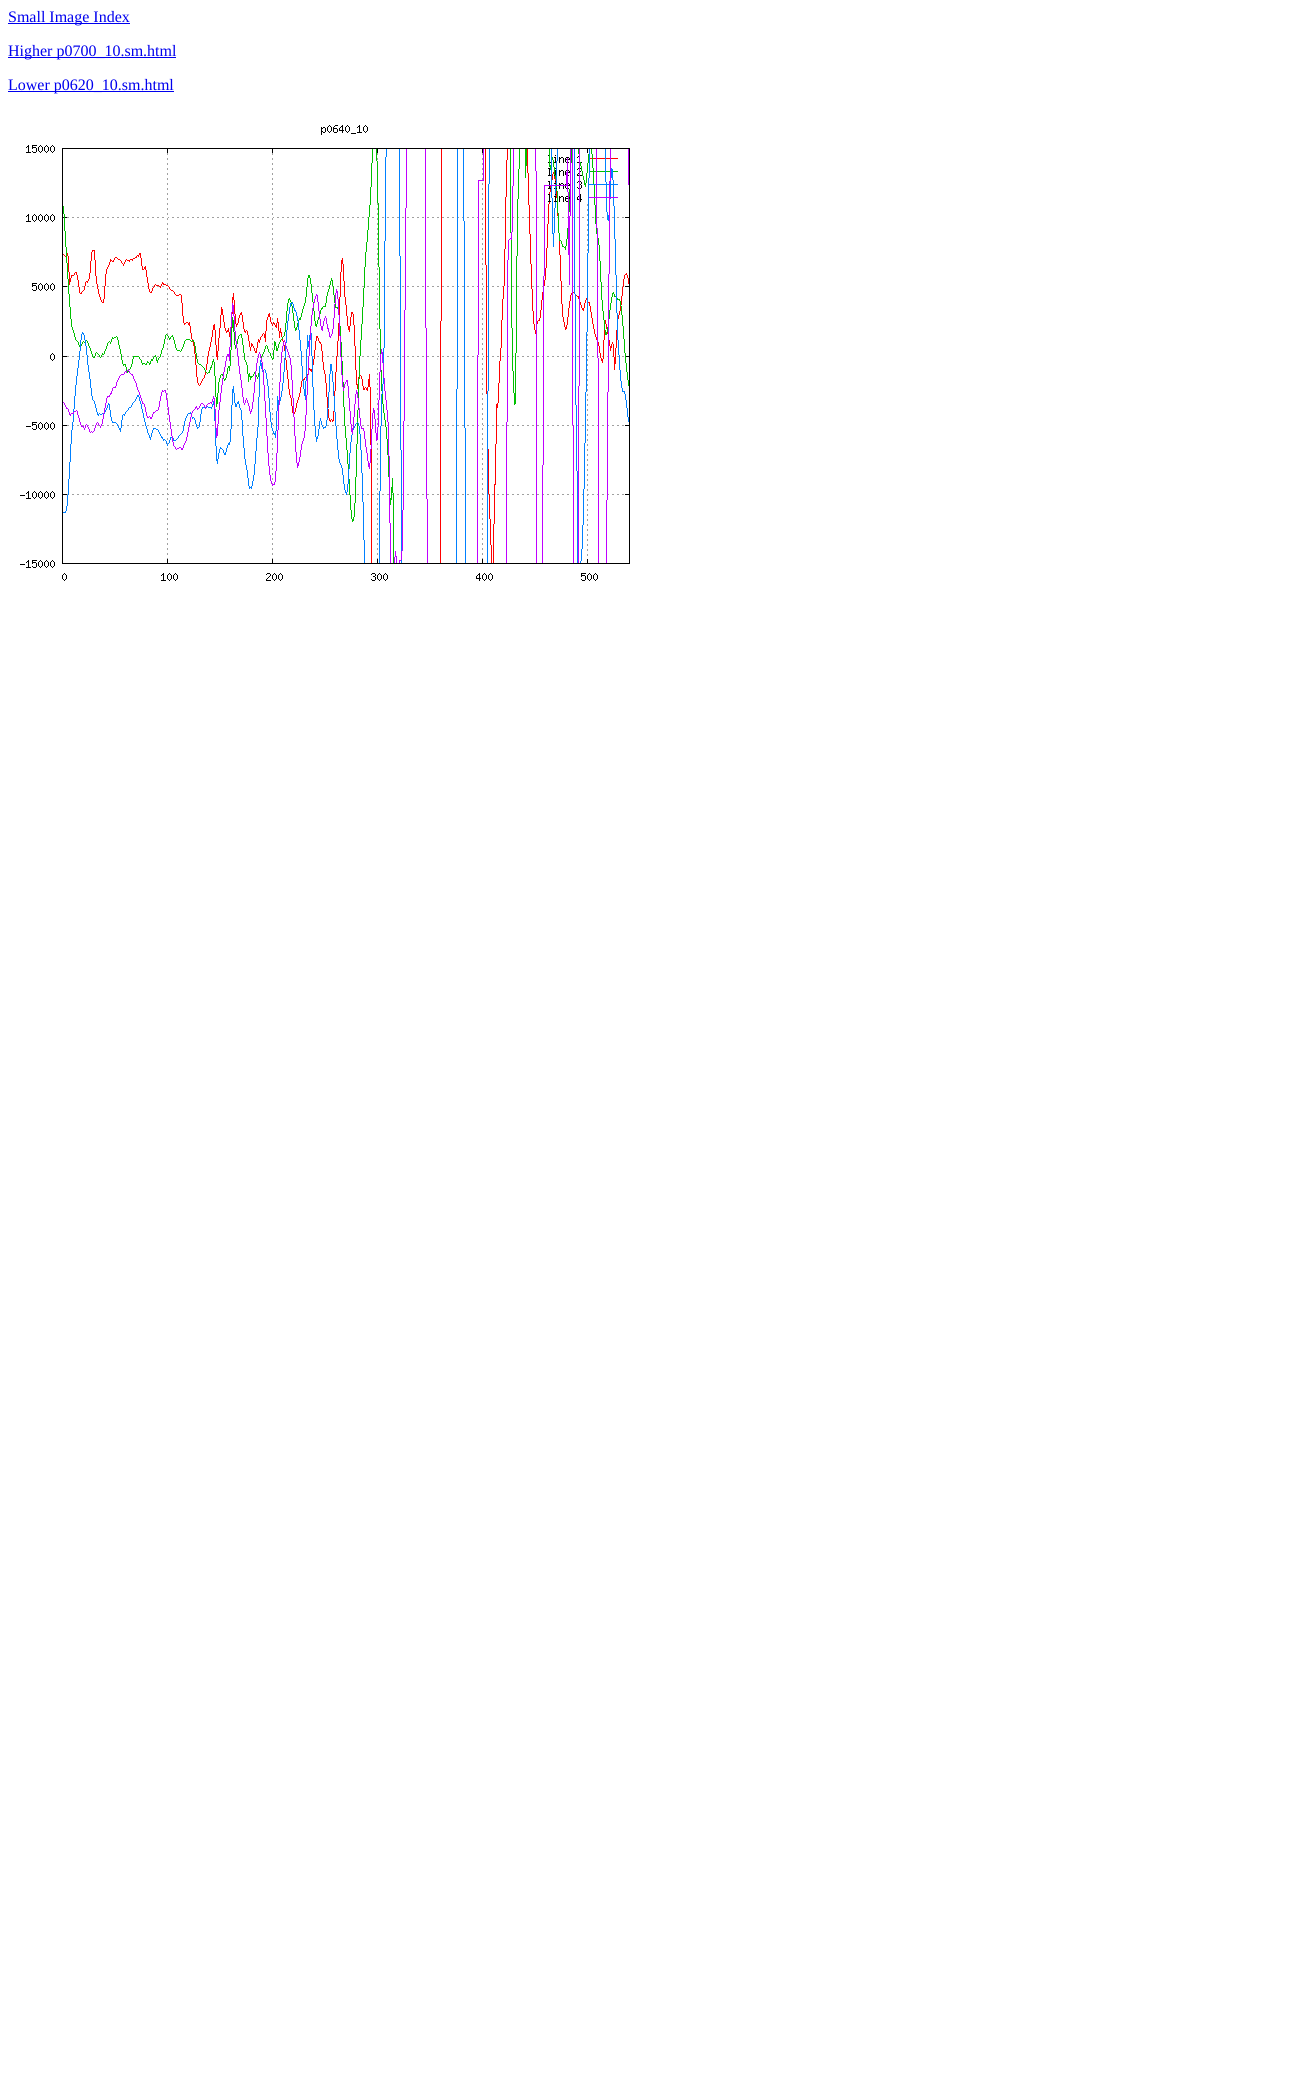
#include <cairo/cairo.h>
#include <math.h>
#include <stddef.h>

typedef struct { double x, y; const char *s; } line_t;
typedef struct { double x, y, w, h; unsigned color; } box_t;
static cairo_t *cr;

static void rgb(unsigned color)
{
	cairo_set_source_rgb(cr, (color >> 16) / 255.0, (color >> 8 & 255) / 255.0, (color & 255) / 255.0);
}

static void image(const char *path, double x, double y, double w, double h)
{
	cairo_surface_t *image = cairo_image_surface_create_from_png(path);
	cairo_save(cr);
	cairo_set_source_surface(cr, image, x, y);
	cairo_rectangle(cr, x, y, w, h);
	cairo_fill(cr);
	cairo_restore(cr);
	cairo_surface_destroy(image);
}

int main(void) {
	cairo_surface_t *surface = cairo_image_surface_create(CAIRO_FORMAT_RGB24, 1312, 2097);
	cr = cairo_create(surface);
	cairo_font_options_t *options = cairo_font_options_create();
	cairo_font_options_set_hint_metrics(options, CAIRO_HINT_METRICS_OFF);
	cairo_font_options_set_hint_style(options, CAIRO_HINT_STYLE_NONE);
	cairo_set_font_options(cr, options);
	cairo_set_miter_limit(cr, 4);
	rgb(0xffffff);
	cairo_paint(cr);
	{
		static const box_t items[] = {
			{8, 23, 122, 1, 0x0000ee},
			{8, 57, 168, 1, 0x0000ee},
			{8, 91, 166, 1, 0x0000ee},
		};
		for (size_t i = 0; i < sizeof items / sizeof *items; i++) {
			rgb(items[i].color);
			cairo_rectangle(cr, items[i].x, items[i].y, items[i].w, items[i].h);
			cairo_fill(cr);
		}
	}
	image("img/1.png", 20, 125, 610, 456);
	cairo_select_font_face(cr, "Liberation Serif", CAIRO_FONT_SLANT_NORMAL, CAIRO_FONT_WEIGHT_NORMAL);
	cairo_set_font_size(cr, 16);
	{
		static const line_t items[] = {
			{8, 22, "Small Image Index"},
			{8, 56, "Higher p0700_10.sm.html"},
			{8, 90, "Lower p0620_10.sm.html"},
		};
		for (size_t i = 0; i < sizeof items / sizeof *items; i++) {
			cairo_move_to(cr, items[i].x, items[i].y);
			cairo_show_text(cr, items[i].s);
		}
	}
	cairo_surface_write_to_png(surface, "page.png");
	cairo_font_options_destroy(options);
	cairo_destroy(cr);
	cairo_surface_destroy(surface);
	return 0;
}
